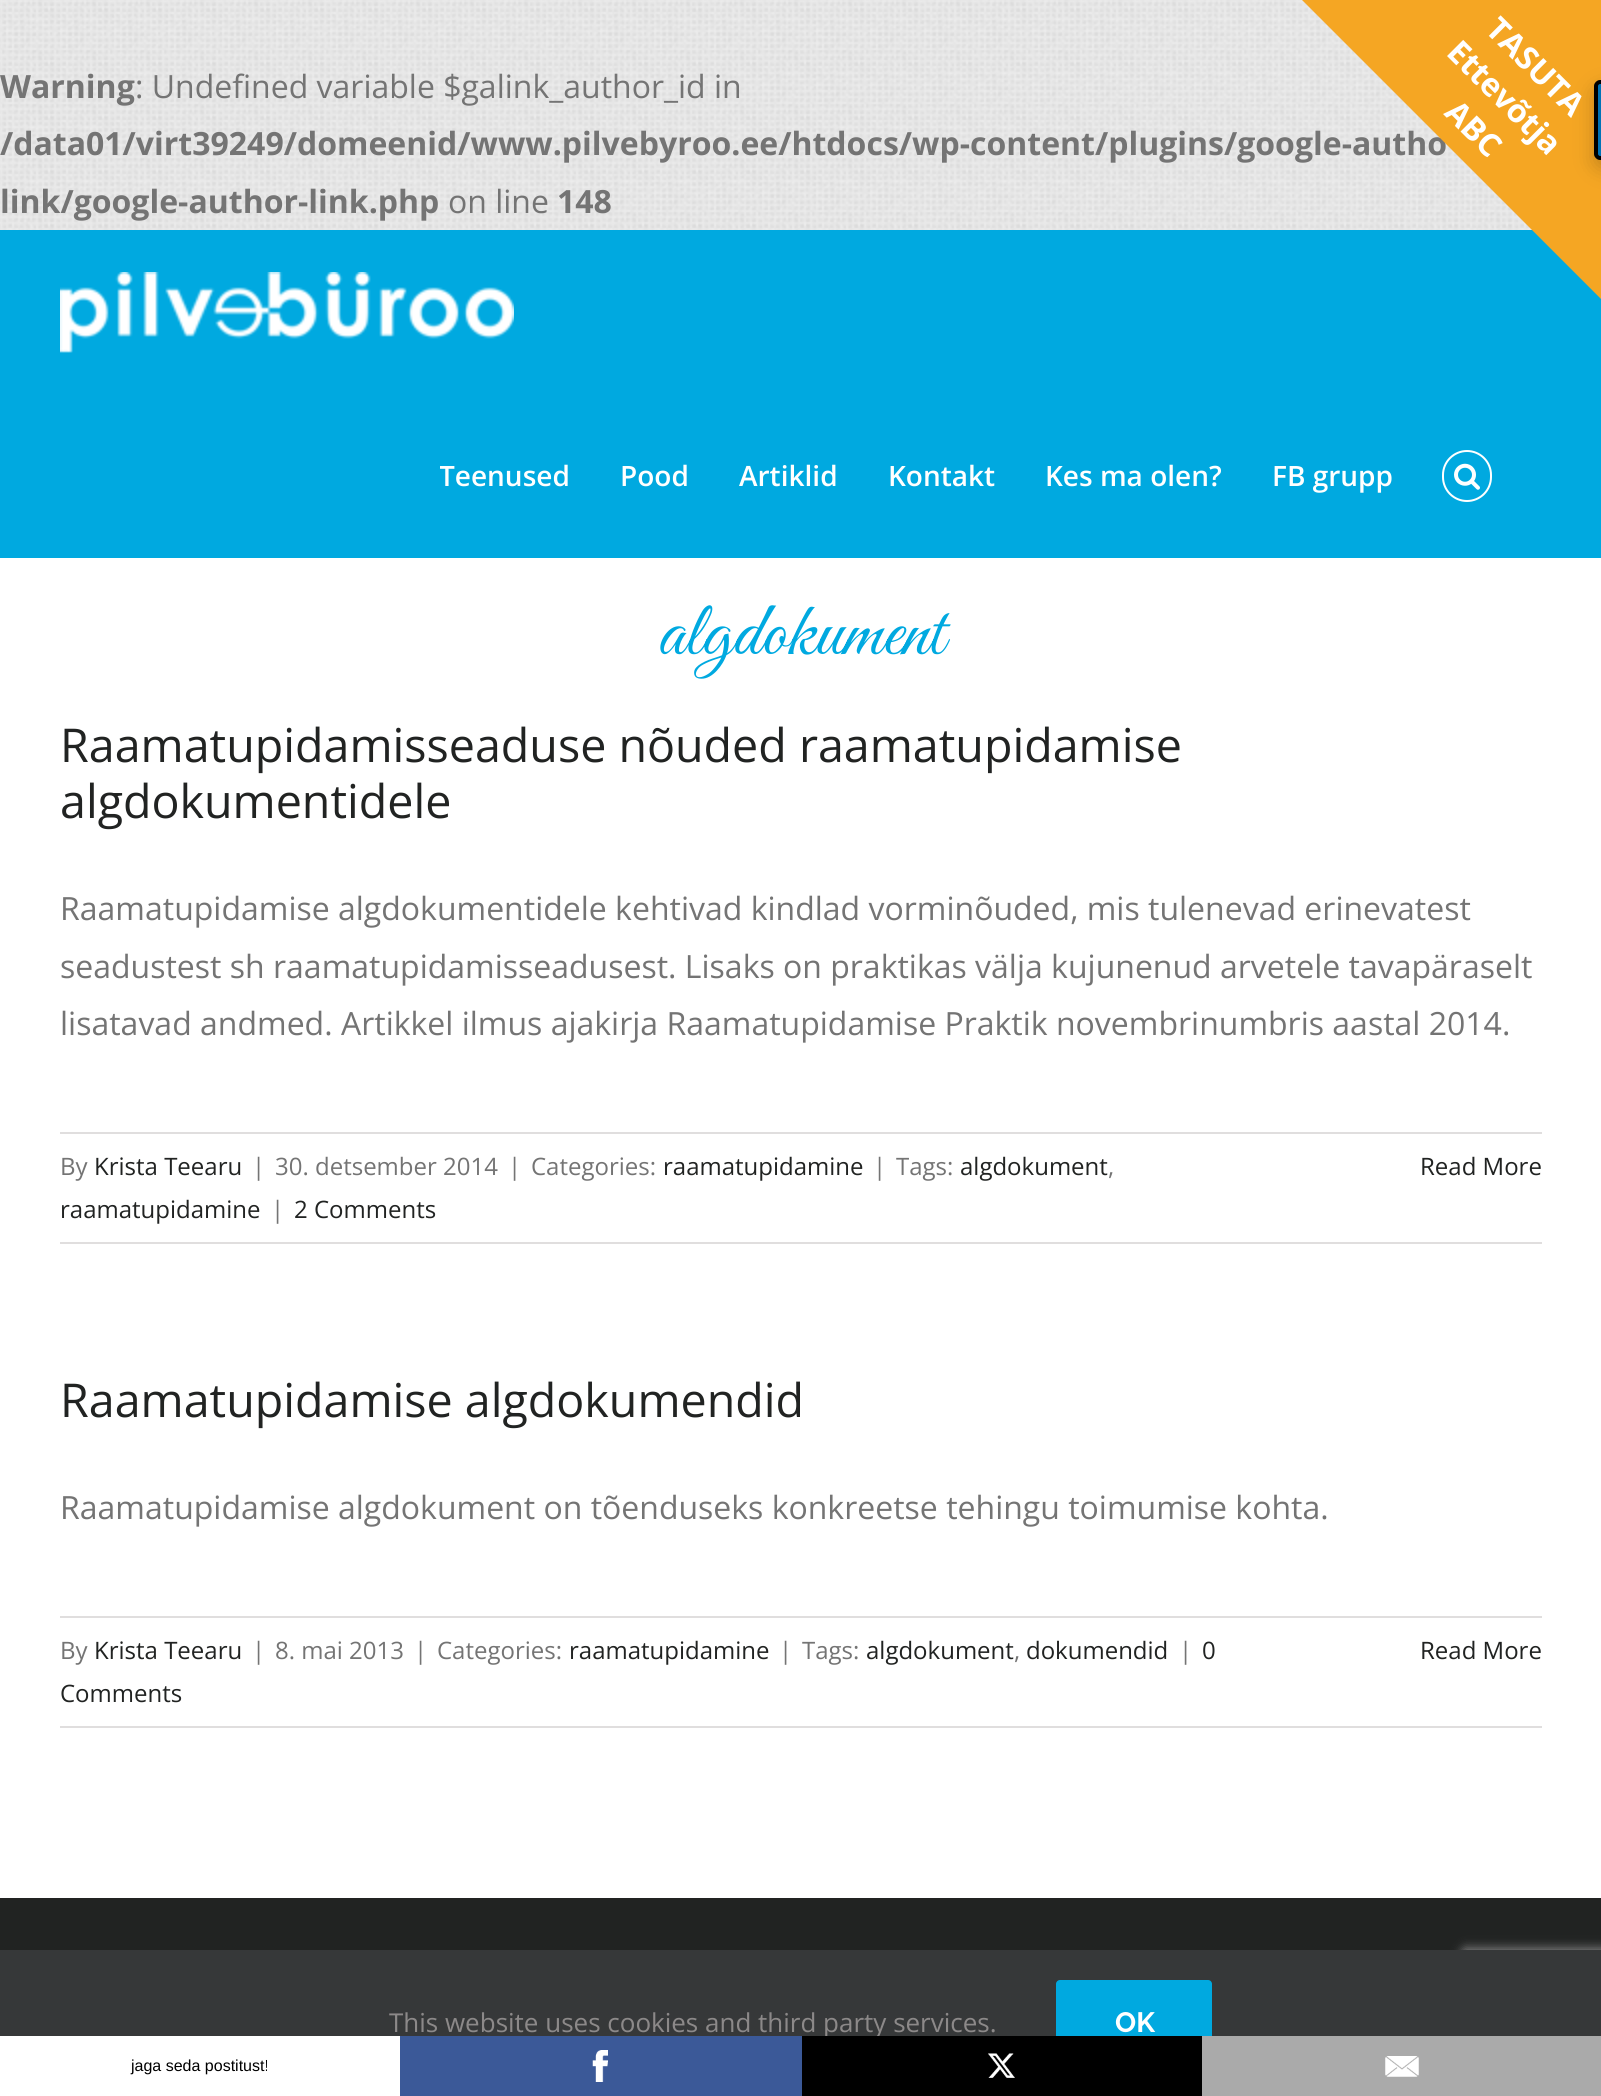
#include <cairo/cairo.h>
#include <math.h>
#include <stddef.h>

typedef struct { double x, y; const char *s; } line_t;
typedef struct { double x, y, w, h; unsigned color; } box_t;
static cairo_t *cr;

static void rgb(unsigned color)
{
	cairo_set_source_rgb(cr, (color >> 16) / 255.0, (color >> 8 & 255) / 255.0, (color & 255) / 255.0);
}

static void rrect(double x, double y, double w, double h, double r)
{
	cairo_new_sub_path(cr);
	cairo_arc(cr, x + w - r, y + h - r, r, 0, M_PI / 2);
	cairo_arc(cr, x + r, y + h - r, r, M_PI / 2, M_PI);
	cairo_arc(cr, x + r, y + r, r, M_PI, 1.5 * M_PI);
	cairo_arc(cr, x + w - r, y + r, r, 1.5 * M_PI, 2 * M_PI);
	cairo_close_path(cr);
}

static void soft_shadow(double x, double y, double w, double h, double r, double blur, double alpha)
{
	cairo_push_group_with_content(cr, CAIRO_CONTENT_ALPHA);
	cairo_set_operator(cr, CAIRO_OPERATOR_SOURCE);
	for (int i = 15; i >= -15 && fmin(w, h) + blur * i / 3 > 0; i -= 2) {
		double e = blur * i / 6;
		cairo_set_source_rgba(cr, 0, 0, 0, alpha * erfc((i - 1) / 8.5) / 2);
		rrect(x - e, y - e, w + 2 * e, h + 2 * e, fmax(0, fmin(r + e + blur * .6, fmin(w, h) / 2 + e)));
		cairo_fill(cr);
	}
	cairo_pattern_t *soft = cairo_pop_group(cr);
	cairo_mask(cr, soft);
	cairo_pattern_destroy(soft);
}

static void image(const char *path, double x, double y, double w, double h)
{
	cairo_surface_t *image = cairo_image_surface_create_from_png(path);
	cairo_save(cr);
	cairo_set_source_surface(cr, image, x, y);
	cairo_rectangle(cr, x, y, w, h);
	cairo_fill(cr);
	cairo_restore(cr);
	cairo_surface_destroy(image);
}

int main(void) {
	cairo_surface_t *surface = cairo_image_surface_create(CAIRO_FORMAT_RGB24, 1601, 2096);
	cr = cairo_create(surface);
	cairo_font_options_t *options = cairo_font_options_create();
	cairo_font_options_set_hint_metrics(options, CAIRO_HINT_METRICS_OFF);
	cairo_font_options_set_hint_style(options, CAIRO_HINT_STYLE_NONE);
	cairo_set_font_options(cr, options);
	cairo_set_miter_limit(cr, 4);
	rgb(0xffffff);
	cairo_paint(cr);
	image("img/1.png", 0, 0, 1532, 230);
	rgb(0x00a9e0);
	cairo_rectangle(cr, 0, 230, 1601, 328);
	cairo_fill(cr);
	image("img/2.png", 60, 272, 454, 81);
	rrect(1443, 451, 48, 50, 24);
	rgb(0xffffff);
	cairo_stroke(cr);
	image("img/3.png", 1454, 463, 26, 27);
	{
		static const box_t items[] = {
			{60, 1132, 1482, 2, 0xe0dede},
			{60, 1242, 1482, 2, 0xe0dede},
			{60, 1616, 1482, 2, 0xe0dede},
			{60, 1726, 1482, 2, 0xe0dede},
			{0, 1898, 1601, 52, 0x212322},
		};
		for (size_t i = 0; i < sizeof items / sizeof *items; i++) {
			rgb(items[i].color);
			cairo_rectangle(cr, items[i].x, items[i].y, items[i].w, items[i].h);
			cairo_fill(cr);
		}
	}
	rgb(0x808080);
	soft_shadow(1462, 1948, 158, 120, 4, 5, 1);
	rgb(0x363839);
	cairo_rectangle(cr, 0, 1950, 1601, 86);
	cairo_fill(cr);
	rgb(0x00a9e0);
	rrect(1056, 1980, 156, 86, 4);
	cairo_fill(cr);
	rgb(0xaaaaaa);
	cairo_rectangle(cr, 1202, 2036, 399, 60);
	cairo_fill(cr);
	image("img/6.png", 1385, 2056, 34, 21);
	cairo_select_font_face(cr, "Open Sans", CAIRO_FONT_SLANT_NORMAL, CAIRO_FONT_WEIGHT_BOLD);
	cairo_set_font_size(cr, 32);
	rgb(0x747474);
	cairo_move_to(cr, 0, 98);
	cairo_show_text(cr, "Warning");
	cairo_select_font_face(cr, "Open Sans", CAIRO_FONT_SLANT_NORMAL, CAIRO_FONT_WEIGHT_NORMAL);
	cairo_move_to(cr, 135, 98);
	cairo_show_text(cr, ": Undefined variable $galink_author_id in");
	cairo_select_font_face(cr, "Open Sans", CAIRO_FONT_SLANT_NORMAL, CAIRO_FONT_WEIGHT_BOLD);
	cairo_move_to(cr, 0, 155);
	cairo_show_text(cr, "/data01/virt39249/domeenid/www.pilvebyroo.ee/htdocs/wp-content/plugins/google-autho");
	rgb(0xf5a623);
	cairo_new_path(cr);
	cairo_move_to(cr, 1302, 0);
	cairo_line_to(cr, 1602, 0);
	cairo_line_to(cr, 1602, 300);
	cairo_close_path(cr);
	cairo_fill(cr);
	rgb(0x000000);
	soft_shadow(1594, 88, 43, 80, 6, 10, 0.2);
	rgb(0x0073b7);
	cairo_new_path(cr);
	cairo_move_to(cr, 1600, 82);
	cairo_line_to(cr, 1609, 82);
	cairo_line_to(cr, 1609, 158);
	cairo_line_to(cr, 1600, 158);
	cairo_curve_to(cr, 1598, 158, 1596, 156, 1596, 154);
	cairo_line_to(cr, 1596, 86);
	cairo_curve_to(cr, 1596, 84, 1598, 82, 1600, 82);
	cairo_close_path(cr);
	cairo_fill_preserve(cr);
	rgb(0x000000);
	cairo_set_line_width(cr, 4);
	cairo_stroke(cr);
	rgb(0xffffff);
	cairo_save(cr);
	cairo_translate(cr, 1484, 31);
	cairo_rotate(cr, 45 * M_PI / 180);
	cairo_move_to(cr, 0, 0);
	cairo_show_text(cr, "TASUTA");
	cairo_restore(cr);
	cairo_save(cr);
	cairo_translate(cr, 1445, 54);
	cairo_rotate(cr, 45 * M_PI / 180);
	cairo_move_to(cr, 0, 0);
	cairo_show_text(cr, "Ettevõtja");
	cairo_restore(cr);
	cairo_save(cr);
	cairo_translate(cr, 1443, 114);
	cairo_rotate(cr, 45 * M_PI / 180);
	cairo_move_to(cr, 0, 0);
	cairo_show_text(cr, "ABC");
	cairo_restore(cr);
	rgb(0x747474);
	cairo_move_to(cr, 0, 213);
	cairo_show_text(cr, "link/google-author-link.php");
	cairo_select_font_face(cr, "Open Sans", CAIRO_FONT_SLANT_NORMAL, CAIRO_FONT_WEIGHT_NORMAL);
	cairo_move_to(cr, 448, 213);
	cairo_show_text(cr, "on line");
	cairo_select_font_face(cr, "Open Sans", CAIRO_FONT_SLANT_NORMAL, CAIRO_FONT_WEIGHT_BOLD);
	cairo_move_to(cr, 557, 213);
	cairo_show_text(cr, "148");
	cairo_save(cr);
	cairo_rectangle(cr, 440, 394, 1102, 164);
	cairo_clip(cr);
	cairo_select_font_face(cr, "Open Sans SemiBold", CAIRO_FONT_SLANT_NORMAL, CAIRO_FONT_WEIGHT_NORMAL);
	cairo_set_font_size(cr, 28);
	rgb(0xffffff);
	cairo_move_to(cr, 439, 486);
	cairo_show_text(cr, "Teenused");
	cairo_restore(cr);
	cairo_select_font_face(cr, "Open Sans SemiBold", CAIRO_FONT_SLANT_NORMAL, CAIRO_FONT_WEIGHT_NORMAL);
	cairo_set_font_size(cr, 28);
	rgb(0xffffff);
	{
		static const line_t items[] = {
			{620, 486, "Pood"},
			{739, 486, "Artiklid"},
			{888, 486, "Kontakt"},
			{1045, 486, "Kes ma olen?"},
			{1272, 486, "FB grupp"},
		};
		for (size_t i = 0; i < sizeof items / sizeof *items; i++) {
			cairo_move_to(cr, items[i].x, items[i].y);
			cairo_show_text(cr, items[i].s);
		}
	}
	cairo_select_font_face(cr, "Great Vibes", CAIRO_FONT_SLANT_NORMAL, CAIRO_FONT_WEIGHT_NORMAL);
	cairo_set_font_size(cr, 77.5);
	rgb(0x00a9e0);
	cairo_move_to(cr, 658, 654);
	cairo_show_text(cr, "algdokument");
	cairo_select_font_face(cr, "Open Sans", CAIRO_FONT_SLANT_NORMAL, CAIRO_FONT_WEIGHT_NORMAL);
	cairo_set_font_size(cr, 46.6);
	rgb(0x212322);
	cairo_move_to(cr, 60, 762);
	cairo_show_text(cr, "Raamatupidamisseaduse nõuded raamatupidamise");
	cairo_move_to(cr, 60, 818);
	cairo_show_text(cr, "algdokumentidele");
	cairo_set_font_size(cr, 32);
	rgb(0x747474);
	{
		static const line_t items[] = {
			{60, 920, "Raamatupidamise algdokumentidele kehtivad kindlad vorminõuded, mis tulenevad erinevatest"},
			{60, 978, "seadustest sh raamatupidamisseadusest. Lisaks on praktikas välja kujunenud arvetele tavapäraselt"},
			{60, 1035, "lisatavad andmed. Artikkel ilmus ajakirja Raamatupidamise Praktik novembrinumbris aastal 2014."},
		};
		for (size_t i = 0; i < sizeof items / sizeof *items; i++) {
			cairo_move_to(cr, items[i].x, items[i].y);
			cairo_show_text(cr, items[i].s);
		}
	}
	cairo_set_font_size(cr, 24);
	cairo_move_to(cr, 60, 1175);
	cairo_show_text(cr, "By");
	rgb(0x212322);
	cairo_move_to(cr, 94, 1175);
	cairo_show_text(cr, "Krista Teearu");
	rgb(0x747474);
	{
		static const line_t items[] = {
			{252, 1175, "|"},
			{275, 1175, "30. detsember 2014"},
			{508, 1175, "|"},
			{531, 1175, "Categories:"},
		};
		for (size_t i = 0; i < sizeof items / sizeof *items; i++) {
			cairo_move_to(cr, items[i].x, items[i].y);
			cairo_show_text(cr, items[i].s);
		}
	}
	rgb(0x212322);
	cairo_move_to(cr, 663, 1175);
	cairo_show_text(cr, "raamatupidamine");
	rgb(0x747474);
	cairo_move_to(cr, 873, 1175);
	cairo_show_text(cr, "|");
	cairo_move_to(cr, 896, 1175);
	cairo_show_text(cr, "Tags:");
	rgb(0x212322);
	cairo_move_to(cr, 960, 1175);
	cairo_show_text(cr, "algdokument");
	rgb(0x747474);
	cairo_move_to(cr, 1108, 1175);
	cairo_show_text(cr, ",");
	rgb(0x212322);
	cairo_move_to(cr, 60, 1218);
	cairo_show_text(cr, "raamatupidamine");
	rgb(0x747474);
	cairo_move_to(cr, 271, 1218);
	cairo_show_text(cr, "|");
	rgb(0x212322);
	cairo_move_to(cr, 294, 1218);
	cairo_show_text(cr, "2 Comments");
	cairo_move_to(cr, 1420, 1175);
	cairo_show_text(cr, "Read More");
	cairo_set_font_size(cr, 46.6);
	cairo_move_to(cr, 60, 1417);
	cairo_show_text(cr, "Raamatupidamise algdokumendid");
	cairo_set_font_size(cr, 32);
	rgb(0x747474);
	cairo_move_to(cr, 60, 1519);
	cairo_show_text(cr, "Raamatupidamise algdokument on tõenduseks konkreetse tehingu toimumise kohta.");
	cairo_set_font_size(cr, 24);
	cairo_move_to(cr, 60, 1659);
	cairo_show_text(cr, "By");
	rgb(0x212322);
	cairo_move_to(cr, 94, 1659);
	cairo_show_text(cr, "Krista Teearu");
	rgb(0x747474);
	{
		static const line_t items[] = {
			{252, 1659, "|"},
			{275, 1659, "8. mai 2013"},
			{414, 1659, "|"},
			{437, 1659, "Categories:"},
		};
		for (size_t i = 0; i < sizeof items / sizeof *items; i++) {
			cairo_move_to(cr, items[i].x, items[i].y);
			cairo_show_text(cr, items[i].s);
		}
	}
	rgb(0x212322);
	cairo_move_to(cr, 569, 1659);
	cairo_show_text(cr, "raamatupidamine");
	rgb(0x747474);
	cairo_move_to(cr, 779, 1659);
	cairo_show_text(cr, "|");
	cairo_move_to(cr, 802, 1659);
	cairo_show_text(cr, "Tags:");
	rgb(0x212322);
	cairo_move_to(cr, 866, 1659);
	cairo_show_text(cr, "algdokument");
	rgb(0x747474);
	cairo_move_to(cr, 1014, 1659);
	cairo_show_text(cr, ",");
	rgb(0x212322);
	cairo_move_to(cr, 1026, 1659);
	cairo_show_text(cr, "dokumendid");
	rgb(0x747474);
	cairo_move_to(cr, 1179, 1659);
	cairo_show_text(cr, "|");
	rgb(0x212322);
	{
		static const line_t items[] = {
			{1202, 1659, "0"},
			{60, 1702, "Comments"},
			{1420, 1659, "Read More"},
		};
		for (size_t i = 0; i < sizeof items / sizeof *items; i++) {
			cairo_move_to(cr, items[i].x, items[i].y);
			cairo_show_text(cr, items[i].s);
		}
	}
	cairo_set_font_size(cr, 26);
	rgb(0x8c8989);
	cairo_move_to(cr, 389, 2032);
	cairo_show_text(cr, "This website uses cookies and third party services.");
	cairo_select_font_face(cr, "Raleway Thin", CAIRO_FONT_SLANT_NORMAL, CAIRO_FONT_WEIGHT_NORMAL);
	cairo_set_font_size(cr, 28);
	rgb(0xffffff);
	cairo_move_to(cr, 1115, 2032);
	cairo_show_text(cr, "OK");
	cairo_select_font_face(cr, "Liberation Sans", CAIRO_FONT_SLANT_NORMAL, CAIRO_FONT_WEIGHT_NORMAL);
	cairo_set_font_size(cr, 16);
	rgb(0x000000);
	cairo_move_to(cr, 131, 2071);
	cairo_show_text(cr, "jaga seda postitust!");
	rgb(0x3b5998);
	cairo_rectangle(cr, 400, 2036, 402, 60);
	cairo_fill(cr);
	image("img/4.png", 592, 2050, 16, 32);
	rgb(0x000000);
	cairo_rectangle(cr, 802, 2036, 400, 60);
	cairo_fill(cr);
	image("img/5.png", 988, 2053, 27, 25);
	cairo_surface_write_to_png(surface, "page.png");
	cairo_font_options_destroy(options);
	cairo_destroy(cr);
	cairo_surface_destroy(surface);
	return 0;
}
